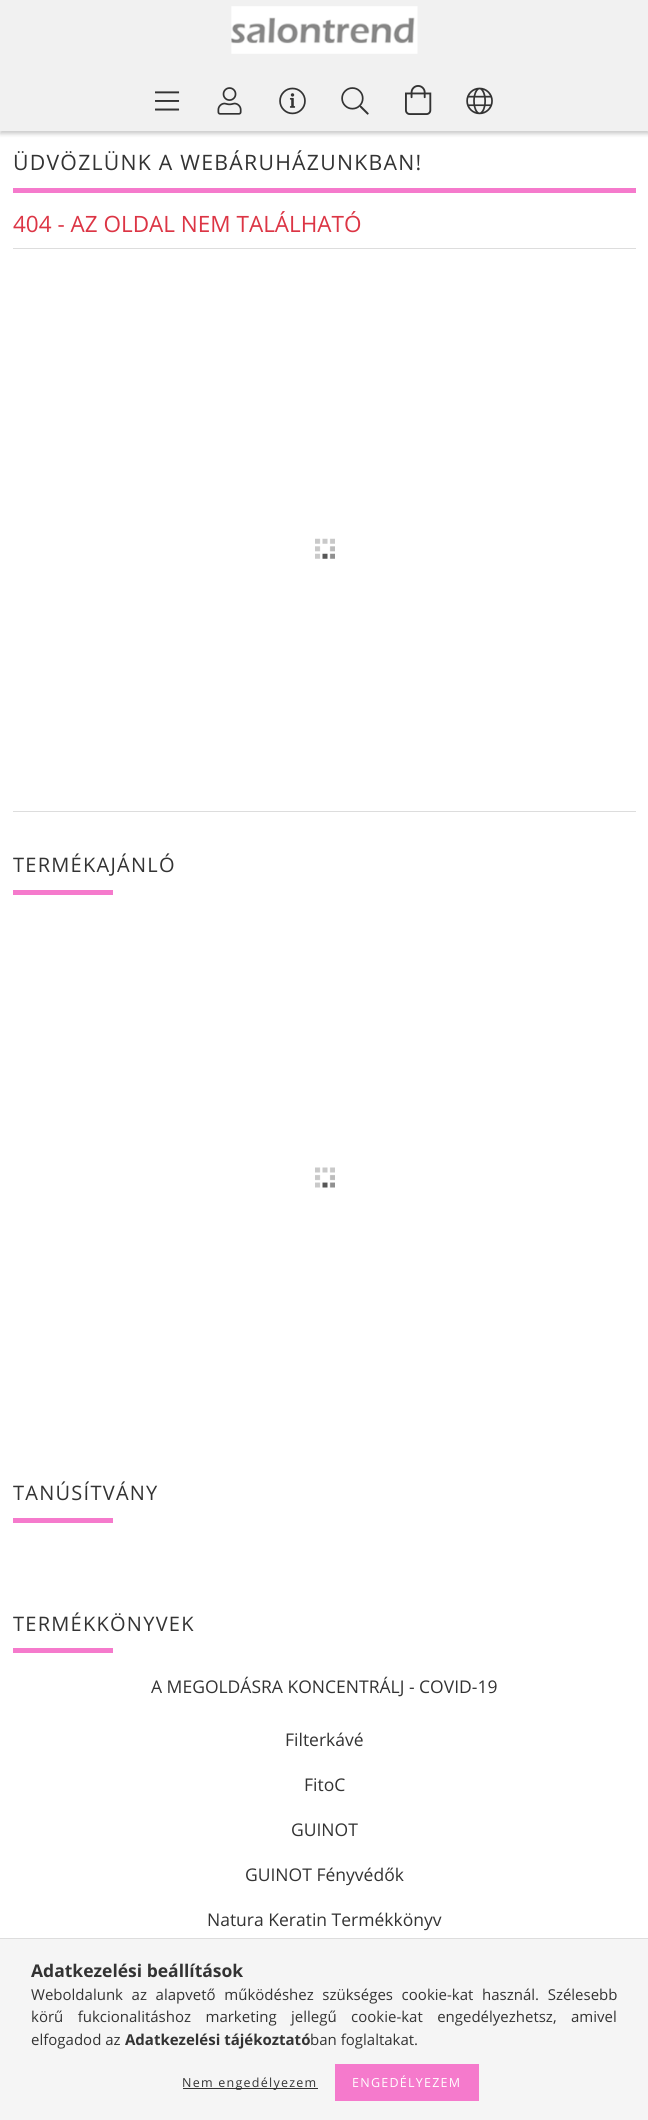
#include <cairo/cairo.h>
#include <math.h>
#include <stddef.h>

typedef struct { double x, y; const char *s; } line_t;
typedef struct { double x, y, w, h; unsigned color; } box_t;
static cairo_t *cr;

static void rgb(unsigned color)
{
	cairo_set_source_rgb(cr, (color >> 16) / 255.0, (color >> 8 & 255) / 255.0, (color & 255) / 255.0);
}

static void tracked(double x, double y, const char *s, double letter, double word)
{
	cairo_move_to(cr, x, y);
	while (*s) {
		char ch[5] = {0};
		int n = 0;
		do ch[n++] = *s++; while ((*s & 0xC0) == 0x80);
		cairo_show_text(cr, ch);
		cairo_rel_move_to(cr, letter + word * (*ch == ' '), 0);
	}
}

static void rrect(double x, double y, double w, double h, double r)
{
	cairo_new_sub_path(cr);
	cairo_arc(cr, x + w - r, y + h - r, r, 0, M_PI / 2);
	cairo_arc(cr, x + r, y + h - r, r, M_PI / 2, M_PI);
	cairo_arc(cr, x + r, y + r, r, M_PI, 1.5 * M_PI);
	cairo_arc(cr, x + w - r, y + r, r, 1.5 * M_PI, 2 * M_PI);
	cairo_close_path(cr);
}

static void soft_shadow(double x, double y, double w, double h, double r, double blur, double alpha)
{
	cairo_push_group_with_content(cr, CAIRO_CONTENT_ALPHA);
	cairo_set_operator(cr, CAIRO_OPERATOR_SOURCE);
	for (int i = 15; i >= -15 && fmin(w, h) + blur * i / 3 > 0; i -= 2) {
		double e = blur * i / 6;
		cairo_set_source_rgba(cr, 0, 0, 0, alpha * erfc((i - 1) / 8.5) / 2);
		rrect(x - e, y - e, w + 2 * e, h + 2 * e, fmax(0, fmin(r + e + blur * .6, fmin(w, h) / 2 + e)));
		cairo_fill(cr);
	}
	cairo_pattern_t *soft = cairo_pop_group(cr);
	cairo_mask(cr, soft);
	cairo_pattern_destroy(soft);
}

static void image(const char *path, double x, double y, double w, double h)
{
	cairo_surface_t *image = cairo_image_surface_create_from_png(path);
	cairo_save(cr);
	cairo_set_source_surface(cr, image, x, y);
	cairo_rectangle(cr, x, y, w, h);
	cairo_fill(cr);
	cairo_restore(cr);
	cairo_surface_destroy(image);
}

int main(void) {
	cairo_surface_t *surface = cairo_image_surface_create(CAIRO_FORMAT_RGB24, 648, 2120);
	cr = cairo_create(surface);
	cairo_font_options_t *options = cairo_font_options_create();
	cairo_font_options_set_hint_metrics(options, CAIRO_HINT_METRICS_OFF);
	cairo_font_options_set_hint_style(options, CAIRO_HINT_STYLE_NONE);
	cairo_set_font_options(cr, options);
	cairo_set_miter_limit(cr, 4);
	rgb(0xffffff);
	cairo_paint(cr);
	rgb(0x000000);
	soft_shadow(0, 3, 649, 131, 0, 2, 0.2);
	rgb(0xf1f1f1);
	cairo_rectangle(cr, 0, 0, 648, 131);
	cairo_fill(cr);
	image("img/1.png", 231, 6, 187, 48);
	image("img/2.png", 155, 91, 25, 20);
	image("img/3.png", 217, 87, 25, 28);
	image("img/4.png", 279, 87, 27, 28);
	image("img/5.png", 341, 87, 28, 28);
	image("img/6.png", 405, 85, 27, 30);
	image("img/7.png", 466, 87, 27, 28);
	rgb(0xf57acc);
	cairo_rectangle(cr, 13, 188, 623, 5);
	cairo_fill(cr);
	rgb(0xdddddd);
	cairo_rectangle(cr, 13, 248, 623, 1);
	cairo_fill(cr);
	image("img/8.png", 315, 538, 20, 21);
	cairo_rectangle(cr, 13, 811, 623, 1);
	cairo_fill(cr);
	rgb(0xf57acc);
	cairo_rectangle(cr, 13, 890, 100, 5);
	cairo_fill(cr);
	image("img/9.png", 315, 1167, 20, 21);
	{
		static const box_t items[] = {
			{13, 1518, 100, 5, 0xf57acc},
			{13, 1648, 100, 5, 0xf57acc},
			{0, 1939, 648, 181, 0xf5f5f5},
			{0, 1938, 648, 1, 0xdddddd},
			{183, 2088, 135, 1, 0x333333},
			{335, 2064, 144, 37, 0xf57acc},
		};
		for (size_t i = 0; i < sizeof items / sizeof *items; i++) {
			rgb(items[i].color);
			cairo_rectangle(cr, items[i].x, items[i].y, items[i].w, items[i].h);
			cairo_fill(cr);
		}
	}
	cairo_select_font_face(cr, "Open Sans", CAIRO_FONT_SLANT_NORMAL, CAIRO_FONT_WEIGHT_NORMAL);
	cairo_set_font_size(cr, 21.25);
	rgb(0x333333);
	tracked(13, 170, "ÜDVÖZLÜNK A WEBÁRUHÁZUNKBAN!", 1.25, 0);
	cairo_set_font_size(cr, 22.5);
	rgb(0xdc3545);
	cairo_move_to(cr, 13, 232);
	cairo_show_text(cr, "404 - AZ OLDAL NEM TALÁLHATÓ");
	cairo_set_font_size(cr, 20);
	rgb(0x333333);
	{
		static const line_t items[] = {
			{13, 872, "TERMÉKAJÁNLÓ"},
			{13, 1500, "TANÚSÍTVÁNY"},
			{13, 1631, "TERMÉKKÖNYVEK"},
		};
		for (size_t i = 0; i < sizeof items / sizeof *items; i++) {
			tracked(items[i].x, items[i].y, items[i].s, 1.25, 0);
		}
	}
	cairo_set_font_size(cr, 17.5);
	{
		static const line_t items[] = {
			{151, 1693, "A MEGOLDÁSRA KONCENTRÁLJ - COVID-19"},
			{285, 1746, "Filterkávé"},
			{304, 1791, "FitoC"},
			{291, 1836, "GUINOT"},
			{245, 1881, "GUINOT Fényvédők"},
			{207, 1926, "Natura Keratin Termékkönyv"},
		};
		for (size_t i = 0; i < sizeof items / sizeof *items; i++) {
			cairo_move_to(cr, items[i].x, items[i].y);
			cairo_show_text(cr, items[i].s);
		}
	}
	cairo_select_font_face(cr, "Open Sans", CAIRO_FONT_SLANT_NORMAL, CAIRO_FONT_WEIGHT_BOLD);
	cairo_move_to(cr, 31, 1977);
	cairo_show_text(cr, "Adatkezelési beállítások");
	cairo_select_font_face(cr, "Open Sans", CAIRO_FONT_SLANT_NORMAL, CAIRO_FONT_WEIGHT_NORMAL);
	cairo_set_font_size(cr, 15);
	tracked(31, 2000, "Weboldalunk az alapvető működéshez szükséges cookie-kat használ. Szélesebb", 0, 4.75);
	tracked(31, 2022, "körű fukcionalitáshoz marketing jellegű cookie-kat engedélyezhetsz, amivel", 0, 10.5);
	cairo_move_to(cr, 31, 2045);
	cairo_show_text(cr, "elfogadod az");
	cairo_select_font_face(cr, "Open Sans", CAIRO_FONT_SLANT_NORMAL, CAIRO_FONT_WEIGHT_BOLD);
	cairo_move_to(cr, 125, 2045);
	cairo_show_text(cr, "Adatkezelési tájékoztató");
	cairo_select_font_face(cr, "Open Sans", CAIRO_FONT_SLANT_NORMAL, CAIRO_FONT_WEIGHT_NORMAL);
	cairo_move_to(cr, 310, 2045);
	cairo_show_text(cr, "ban foglaltakat.");
	cairo_set_font_size(cr, 12.5);
	tracked(182, 2087, "Nem engedélyezem", 1.25, 0);
	rgb(0xffffff);
	tracked(352, 2087, "ENGEDÉLYEZEM", 1.25, 0);
	cairo_surface_write_to_png(surface, "page.png");
	cairo_font_options_destroy(options);
	cairo_destroy(cr);
	cairo_surface_destroy(surface);
	return 0;
}
